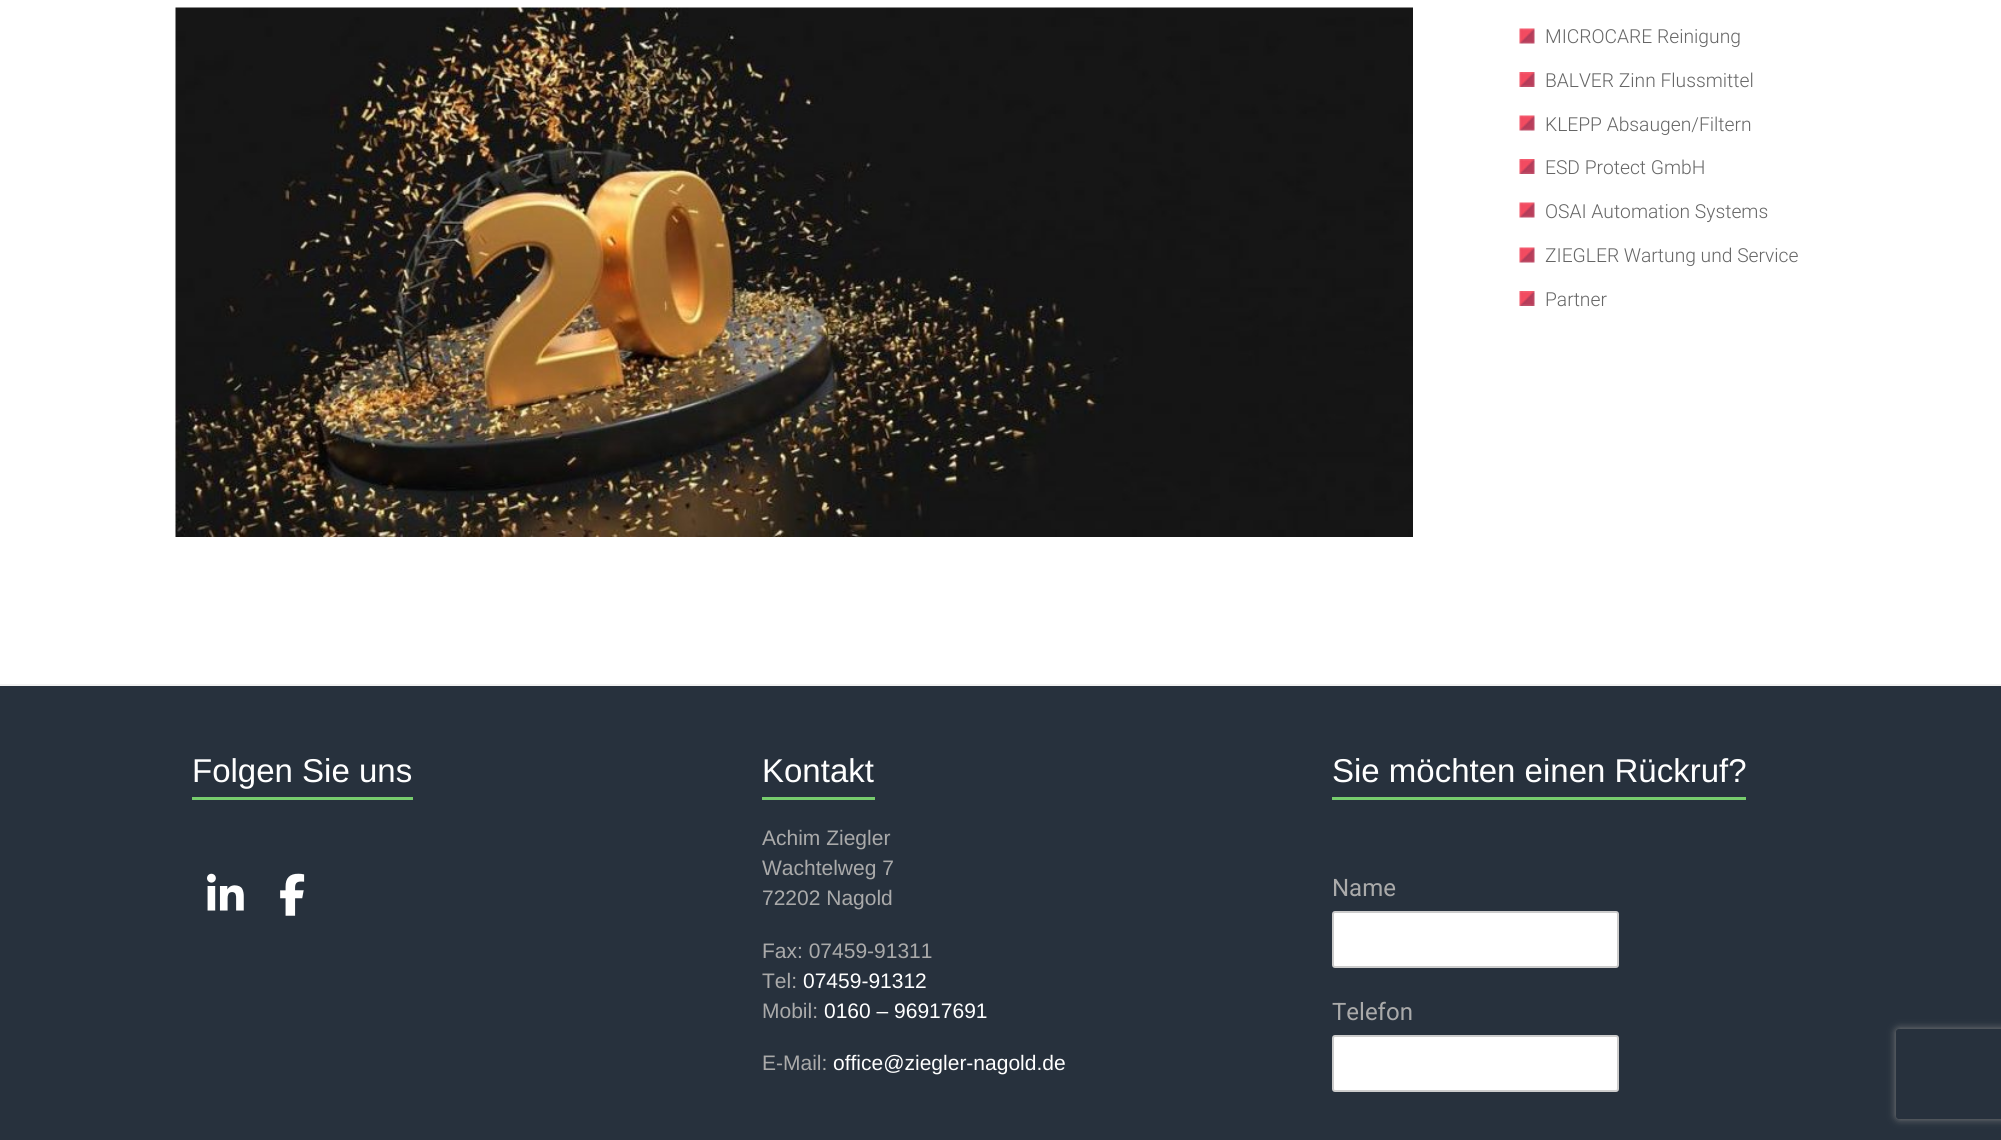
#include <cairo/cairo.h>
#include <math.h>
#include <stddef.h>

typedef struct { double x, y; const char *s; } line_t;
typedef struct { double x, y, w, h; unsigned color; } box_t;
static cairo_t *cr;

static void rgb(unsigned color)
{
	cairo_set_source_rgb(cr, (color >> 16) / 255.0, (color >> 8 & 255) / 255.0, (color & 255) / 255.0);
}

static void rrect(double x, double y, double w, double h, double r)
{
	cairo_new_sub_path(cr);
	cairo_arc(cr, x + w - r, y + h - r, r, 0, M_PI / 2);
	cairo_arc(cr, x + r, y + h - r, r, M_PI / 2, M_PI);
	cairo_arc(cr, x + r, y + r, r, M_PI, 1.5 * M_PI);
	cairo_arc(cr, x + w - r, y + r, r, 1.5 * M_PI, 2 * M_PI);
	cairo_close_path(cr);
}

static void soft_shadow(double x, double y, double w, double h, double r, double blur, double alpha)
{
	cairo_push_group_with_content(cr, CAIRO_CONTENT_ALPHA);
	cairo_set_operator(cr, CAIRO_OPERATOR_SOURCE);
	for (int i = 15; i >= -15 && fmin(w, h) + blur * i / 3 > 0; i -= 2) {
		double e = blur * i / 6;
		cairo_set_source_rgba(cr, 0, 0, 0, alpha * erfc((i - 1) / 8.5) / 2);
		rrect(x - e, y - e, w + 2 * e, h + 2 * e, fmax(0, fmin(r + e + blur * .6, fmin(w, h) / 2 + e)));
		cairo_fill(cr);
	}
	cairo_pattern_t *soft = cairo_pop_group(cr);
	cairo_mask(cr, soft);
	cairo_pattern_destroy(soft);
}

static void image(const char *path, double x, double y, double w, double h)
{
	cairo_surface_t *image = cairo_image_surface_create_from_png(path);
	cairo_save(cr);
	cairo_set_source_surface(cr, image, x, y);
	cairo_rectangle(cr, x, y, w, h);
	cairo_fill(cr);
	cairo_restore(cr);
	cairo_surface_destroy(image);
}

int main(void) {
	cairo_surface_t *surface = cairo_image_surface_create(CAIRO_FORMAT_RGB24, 2001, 1140);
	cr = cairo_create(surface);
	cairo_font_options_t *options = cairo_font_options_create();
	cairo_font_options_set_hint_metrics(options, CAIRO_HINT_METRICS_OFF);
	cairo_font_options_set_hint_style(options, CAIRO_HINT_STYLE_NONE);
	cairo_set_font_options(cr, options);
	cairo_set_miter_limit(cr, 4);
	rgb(0xffffff);
	cairo_paint(cr);
	image("img/1.png", 175, 7, 1238, 530);
	image("img/2.png", 1519, 28, 16, 16);
	image("img/3.png", 1519, 72, 16, 15);
	image("img/2.png", 1519, 115, 16, 16);
	image("img/3.png", 1519, 159, 16, 15);
	image("img/2.png", 1519, 202, 16, 16);
	image("img/2.png", 1519, 247, 16, 16);
	image("img/3.png", 1519, 291, 16, 15);
	{
		static const box_t items[] = {
			{0, 686, 2001, 454, 0x27313d},
			{0, 684, 2001, 2, 0xf2f2f2},
			{192, 797, 221, 3, 0x77cc6d},
		};
		for (size_t i = 0; i < sizeof items / sizeof *items; i++) {
			rgb(items[i].color);
			cairo_rectangle(cr, items[i].x, items[i].y, items[i].w, items[i].h);
			cairo_fill(cr);
		}
	}
	image("img/4.png", 207, 873, 37, 38);
	image("img/5.png", 280, 873, 25, 43);
	cairo_rectangle(cr, 762, 797, 113, 3);
	cairo_fill(cr);
	cairo_rectangle(cr, 1332, 797, 414, 3);
	cairo_fill(cr);
	rgb(0xffffff);
	rrect(1333, 912, 285, 55, 2);
	cairo_fill_preserve(cr);
	rgb(0xcccccc);
	cairo_stroke(cr);
	rgb(0xffffff);
	rrect(1333, 1036, 285, 55, 2);
	cairo_fill_preserve(cr);
	rgb(0xcccccc);
	cairo_stroke(cr);
	cairo_save(cr);
	cairo_set_fill_rule(cr, CAIRO_FILL_RULE_EVEN_ODD);
	cairo_new_path(cr);
	cairo_move_to(cr, 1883, 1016);
	cairo_line_to(cr, 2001, 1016);
	cairo_line_to(cr, 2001, 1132);
	cairo_line_to(cr, 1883, 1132);
	cairo_close_path(cr);
	cairo_move_to(cr, 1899, 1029);
	cairo_line_to(cr, 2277, 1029);
	cairo_curve_to(cr, 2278.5, 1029, 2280, 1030.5, 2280, 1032);
	cairo_line_to(cr, 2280, 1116);
	cairo_curve_to(cr, 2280, 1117.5, 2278.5, 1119, 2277, 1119);
	cairo_line_to(cr, 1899, 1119);
	cairo_curve_to(cr, 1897.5, 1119, 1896, 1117.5, 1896, 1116);
	cairo_line_to(cr, 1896, 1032);
	cairo_curve_to(cr, 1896, 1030.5, 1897.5, 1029, 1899, 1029);
	cairo_close_path(cr);
	cairo_clip(cr);
	rgb(0x808080);
	soft_shadow(1896, 1029, 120, 90, 3, 4, 1);
	cairo_restore(cr);
	cairo_select_font_face(cr, "Roboto Light", CAIRO_FONT_SLANT_NORMAL, CAIRO_FONT_WEIGHT_NORMAL);
	cairo_set_font_size(cr, 19.25);
	rgb(0x666666);
	{
		static const line_t items[] = {
			{1545, 43, "MICROCARE Reinigung"},
			{1545, 87, "BALVER Zinn Flussmittel"},
			{1545, 131, "KLEPP Absaugen/Filtern"},
			{1545, 174, "ESD Protect GmbH"},
			{1545, 218, "OSAI Automation Systems"},
			{1545, 262, "ZIEGLER Wartung und Service"},
			{1545, 306, "Partner"},
		};
		for (size_t i = 0; i < sizeof items / sizeof *items; i++) {
			cairo_move_to(cr, items[i].x, items[i].y);
			cairo_show_text(cr, items[i].s);
		}
	}
	cairo_select_font_face(cr, "Liberation Sans", CAIRO_FONT_SLANT_NORMAL, CAIRO_FONT_WEIGHT_NORMAL);
	cairo_set_font_size(cr, 33);
	rgb(0xffffff);
	cairo_move_to(cr, 192, 782);
	cairo_show_text(cr, "Folgen Sie uns");
	cairo_move_to(cr, 762, 782);
	cairo_show_text(cr, "Kontakt");
	cairo_set_font_size(cr, 21);
	rgb(0xaaaaaa);
	{
		static const line_t items[] = {
			{762, 845, "Achim Ziegler"},
			{762, 875, "Wachtelweg 7"},
			{762, 905, "72202 Nagold"},
			{762, 958, "Fax: 07459-91311"},
			{762, 988, "Tel:"},
		};
		for (size_t i = 0; i < sizeof items / sizeof *items; i++) {
			cairo_move_to(cr, items[i].x, items[i].y);
			cairo_show_text(cr, items[i].s);
		}
	}
	rgb(0xffffff);
	cairo_move_to(cr, 803, 988);
	cairo_show_text(cr, "07459-91312");
	rgb(0xaaaaaa);
	cairo_move_to(cr, 762, 1018);
	cairo_show_text(cr, "Mobil:");
	rgb(0xffffff);
	cairo_move_to(cr, 824, 1018);
	cairo_show_text(cr, "0160 – 96917691");
	rgb(0xaaaaaa);
	cairo_move_to(cr, 762, 1070);
	cairo_show_text(cr, "E-Mail:");
	rgb(0xffffff);
	cairo_move_to(cr, 833, 1070);
	cairo_show_text(cr, "office@ziegler-nagold.de");
	cairo_set_font_size(cr, 33);
	cairo_move_to(cr, 1332, 782);
	cairo_show_text(cr, "Sie möchten einen Rückruf?");
	cairo_select_font_face(cr, "Roboto", CAIRO_FONT_SLANT_NORMAL, CAIRO_FONT_WEIGHT_NORMAL);
	cairo_set_font_size(cr, 24);
	rgb(0xaaaaaa);
	cairo_move_to(cr, 1332, 896);
	cairo_show_text(cr, "Name");
	cairo_move_to(cr, 1332, 1020);
	cairo_show_text(cr, "Telefon");
	cairo_surface_write_to_png(surface, "page.png");
	cairo_font_options_destroy(options);
	cairo_destroy(cr);
	cairo_surface_destroy(surface);
	return 0;
}
